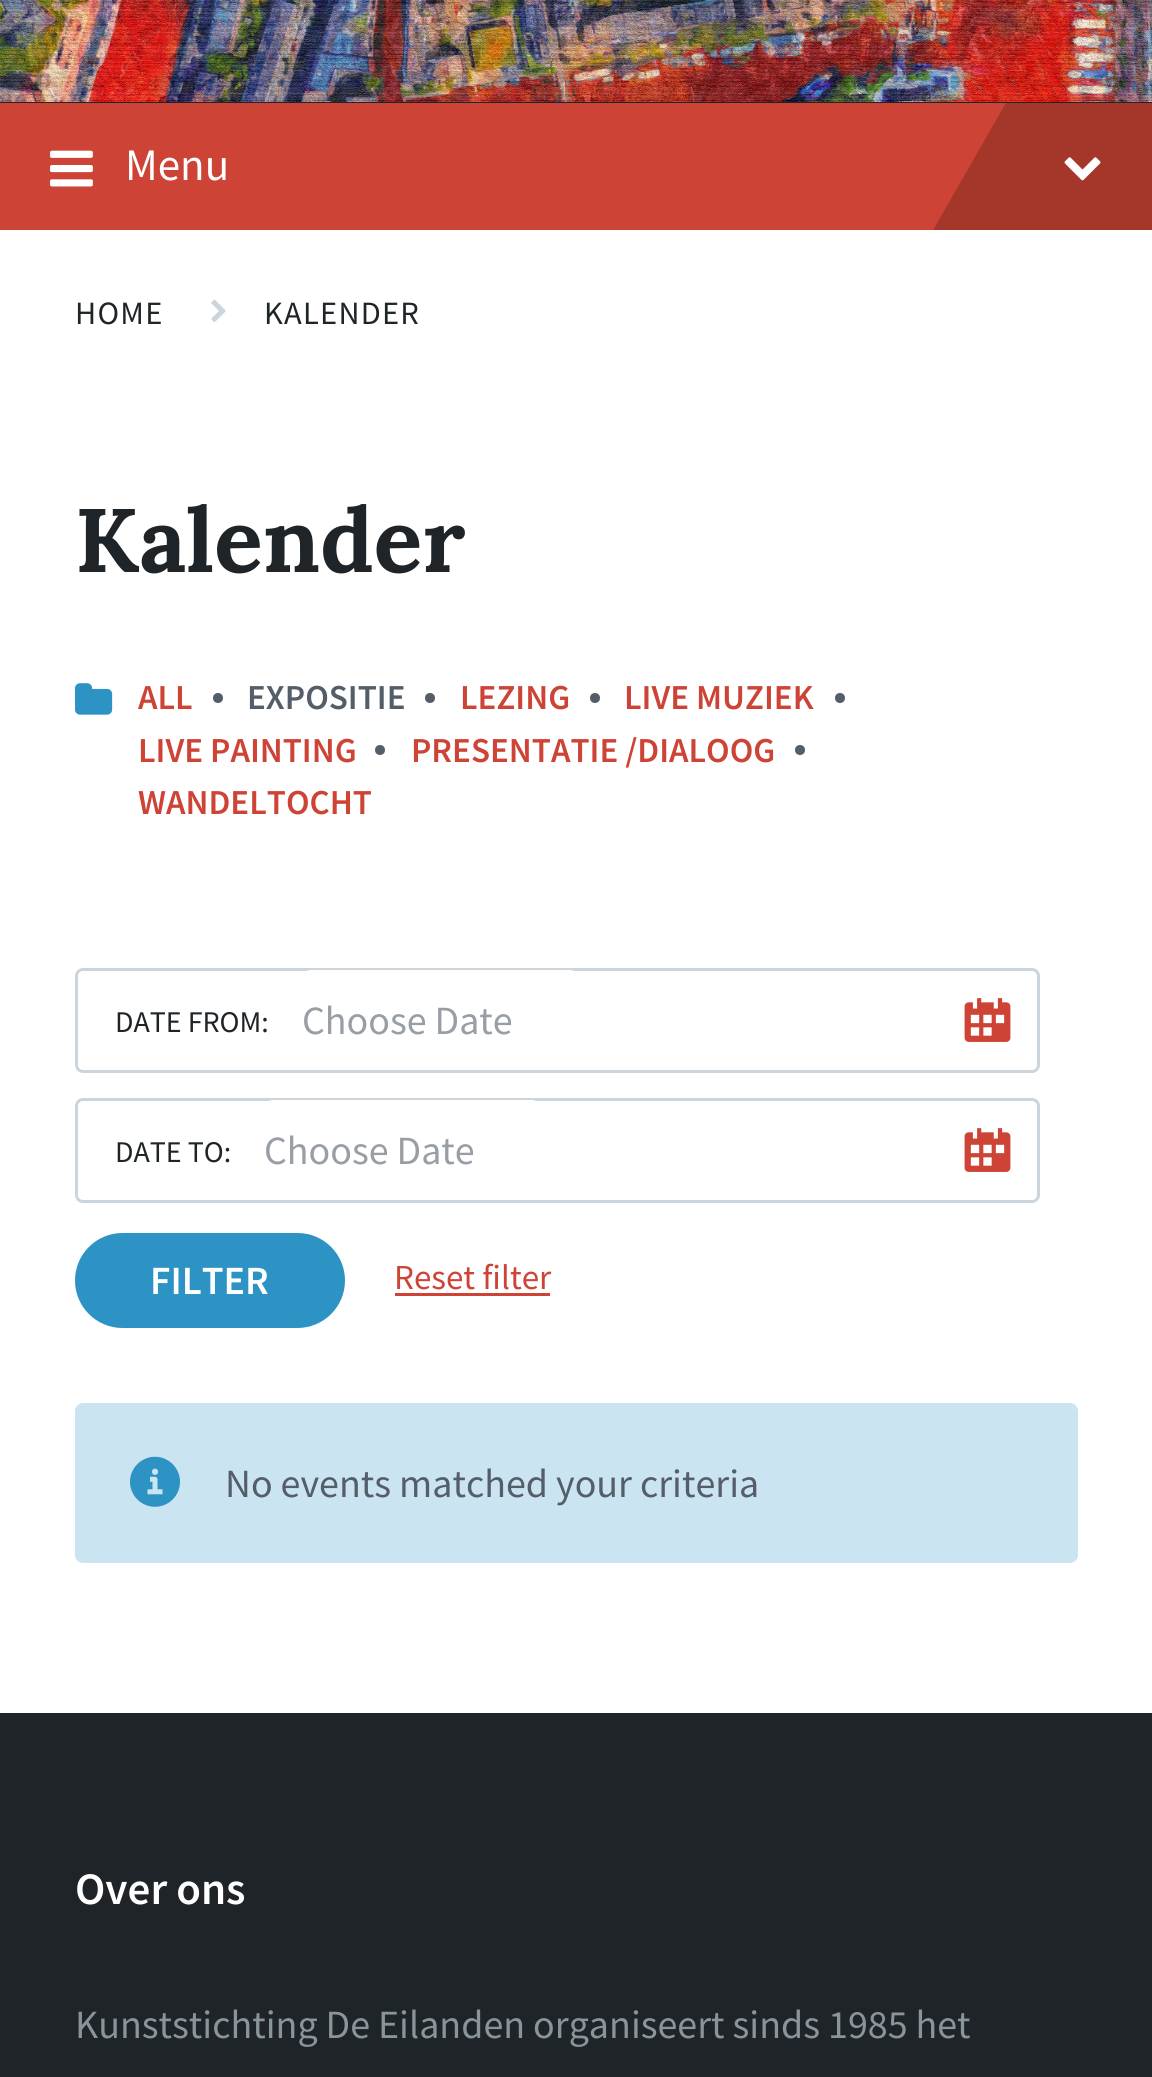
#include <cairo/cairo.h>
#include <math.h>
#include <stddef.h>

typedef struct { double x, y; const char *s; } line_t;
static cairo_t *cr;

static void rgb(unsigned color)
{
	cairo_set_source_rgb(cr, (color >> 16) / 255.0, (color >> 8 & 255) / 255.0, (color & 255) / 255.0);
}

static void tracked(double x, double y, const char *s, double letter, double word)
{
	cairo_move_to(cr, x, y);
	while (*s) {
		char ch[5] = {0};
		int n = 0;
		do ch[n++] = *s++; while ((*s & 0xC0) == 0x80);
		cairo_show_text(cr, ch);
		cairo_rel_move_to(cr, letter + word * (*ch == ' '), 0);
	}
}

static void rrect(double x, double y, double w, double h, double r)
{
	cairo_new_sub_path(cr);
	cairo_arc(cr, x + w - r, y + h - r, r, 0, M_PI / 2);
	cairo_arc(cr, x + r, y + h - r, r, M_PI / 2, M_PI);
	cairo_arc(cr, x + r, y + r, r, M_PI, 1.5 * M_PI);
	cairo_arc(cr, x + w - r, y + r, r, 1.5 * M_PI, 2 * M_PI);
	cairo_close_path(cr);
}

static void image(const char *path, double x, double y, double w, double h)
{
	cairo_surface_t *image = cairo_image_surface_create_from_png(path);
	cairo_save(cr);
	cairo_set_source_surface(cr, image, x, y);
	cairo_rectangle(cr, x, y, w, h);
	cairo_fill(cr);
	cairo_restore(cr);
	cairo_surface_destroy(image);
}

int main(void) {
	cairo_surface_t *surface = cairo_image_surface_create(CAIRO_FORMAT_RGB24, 1152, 2077);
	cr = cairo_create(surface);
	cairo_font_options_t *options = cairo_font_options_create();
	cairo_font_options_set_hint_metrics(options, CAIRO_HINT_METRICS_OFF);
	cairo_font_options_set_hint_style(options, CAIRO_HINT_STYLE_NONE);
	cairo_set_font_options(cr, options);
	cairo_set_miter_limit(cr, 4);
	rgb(0xffffff);
	cairo_paint(cr);
	rgb(0x1e2427);
	cairo_rectangle(cr, 0, 102, 1152, 1);
	cairo_fill(cr);
	image("img/1.png", 0, 0, 1152, 102);
	rgb(0xcd4335);
	cairo_rectangle(cr, 0, 103, 1006, 127);
	cairo_fill(cr);
	image("img/2.png", 50, 150, 43, 37);
	cairo_save(cr);
	cairo_rectangle(cr, 0, 103, 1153, 127);
	cairo_clip(cr);
	rgb(0xa4362a);
	cairo_new_path(cr);
	cairo_move_to(cr, 1054, 19);
	cairo_line_to(cr, 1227, 119);
	cairo_line_to(cr, 1101, 339);
	cairo_line_to(cr, 928, 239);
	cairo_close_path(cr);
	cairo_fill(cr);
	cairo_restore(cr);
	image("img/3.png", 1064, 157, 37, 24);
	image("img/4.png", 211, 299, 15, 23);
	image("img/5.png", 75, 683, 38, 32);
	rgb(0x545e69);
	cairo_arc(cr, 218, 698, 5, 0, 2 * M_PI);
	cairo_fill(cr);
	cairo_arc(cr, 430, 698, 5, 0, 2 * M_PI);
	cairo_fill(cr);
	cairo_arc(cr, 595, 698, 5, 0, 2 * M_PI);
	cairo_fill(cr);
	cairo_arc(cr, 840, 698, 5, 0, 2 * M_PI);
	cairo_fill(cr);
	cairo_arc(cr, 380, 750, 5, 0, 2 * M_PI);
	cairo_fill(cr);
	cairo_arc(cr, 800, 750, 5, 0, 2 * M_PI);
	cairo_fill(cr);
	rrect(76.5, 969.5, 962, 102, 6.5);
	rgb(0xccd5db);
	cairo_set_line_width(cr, 3);
	cairo_stroke(cr);
	rgb(0xffffff);
	rrect(303, 970, 275, 100, 8);
	cairo_fill(cr);
	image("img/6.png", 964, 998, 47, 44);
	rrect(76.5, 1099.5, 962, 102, 6.5);
	rgb(0xccd5db);
	cairo_stroke(cr);
	rgb(0xffffff);
	rrect(265, 1100, 275, 100, 8);
	cairo_fill(cr);
	image("img/6.png", 964, 1128, 47, 44);
	rgb(0x2d93c5);
	rrect(75, 1233, 270, 95, 47.5);
	cairo_fill(cr);
	rgb(0xcd4335);
	cairo_rectangle(cr, 395, 1293, 155, 3);
	cairo_fill(cr);
	rgb(0xcbe4f1);
	rrect(75, 1403, 1003, 160, 8);
	cairo_fill(cr);
	image("img/7.png", 130, 1456, 50, 51);
	rgb(0x1e2427);
	cairo_rectangle(cr, 0, 1713, 1152, 364);
	cairo_fill(cr);
	cairo_select_font_face(cr, "Source Sans Pro", CAIRO_FONT_SLANT_NORMAL, CAIRO_FONT_WEIGHT_NORMAL);
	cairo_set_font_size(cr, 45);
	rgb(0xffffff);
	cairo_move_to(cr, 125, 180);
	cairo_show_text(cr, "Menu");
	cairo_set_font_size(cr, 32.5);
	rgb(0x1e2427);
	tracked(75, 324, "HOME", 1.25, 0);
	tracked(264, 324, "KALENDER", 1.25, 0);
	cairo_select_font_face(cr, "Lora", CAIRO_FONT_SLANT_NORMAL, CAIRO_FONT_WEIGHT_BOLD);
	cairo_set_font_size(cr, 90);
	cairo_move_to(cr, 75, 572);
	cairo_show_text(cr, "Kalender");
	cairo_select_font_face(cr, "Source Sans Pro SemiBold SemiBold", CAIRO_FONT_SLANT_NORMAL, CAIRO_FONT_WEIGHT_NORMAL);
	cairo_set_font_size(cr, 35);
	rgb(0xcd4335);
	cairo_move_to(cr, 138, 709);
	cairo_show_text(cr, "ALL");
	rgb(0x545e69);
	cairo_move_to(cr, 247, 709);
	cairo_show_text(cr, "EXPOSITIE");
	rgb(0xcd4335);
	{
		static const line_t items[] = {
			{460, 709, "LEZING"},
			{624, 709, "LIVE MUZIEK"},
			{138, 762, "LIVE PAINTING"},
			{411, 762, "PRESENTATIE /DIALOOG"},
			{138, 814, "WANDELTOCHT"},
		};
		for (size_t i = 0; i < sizeof items / sizeof *items; i++) {
			cairo_move_to(cr, items[i].x, items[i].y);
			cairo_show_text(cr, items[i].s);
		}
	}
	cairo_select_font_face(cr, "Source Sans Pro", CAIRO_FONT_SLANT_NORMAL, CAIRO_FONT_WEIGHT_NORMAL);
	cairo_set_font_size(cr, 30);
	rgb(0x1e2427);
	cairo_move_to(cr, 115, 1032);
	cairo_show_text(cr, "DATE FROM:");
	cairo_set_font_size(cr, 40);
	rgb(0x989ea5);
	cairo_move_to(cr, 302, 1034);
	cairo_show_text(cr, "Choose Date");
	cairo_set_font_size(cr, 30);
	rgb(0x1e2427);
	cairo_move_to(cr, 115, 1162);
	cairo_show_text(cr, "DATE TO:");
	cairo_set_font_size(cr, 40);
	rgb(0x989ea5);
	cairo_move_to(cr, 264, 1164);
	cairo_show_text(cr, "Choose Date");
	cairo_select_font_face(cr, "Source Sans Pro SemiBold SemiBold", CAIRO_FONT_SLANT_NORMAL, CAIRO_FONT_WEIGHT_NORMAL);
	rgb(0xffffff);
	cairo_move_to(cr, 150, 1294);
	cairo_show_text(cr, "FILTER");
	cairo_select_font_face(cr, "Source Sans Pro", CAIRO_FONT_SLANT_NORMAL, CAIRO_FONT_WEIGHT_NORMAL);
	cairo_set_font_size(cr, 35);
	rgb(0xcd4335);
	cairo_move_to(cr, 394, 1289);
	cairo_show_text(cr, "Reset filter");
	cairo_set_font_size(cr, 40);
	rgb(0x545e69);
	cairo_move_to(cr, 225, 1497);
	cairo_show_text(cr, "No events matched your criteria");
	cairo_select_font_face(cr, "Source Sans Pro SemiBold SemiBold", CAIRO_FONT_SLANT_NORMAL, CAIRO_FONT_WEIGHT_NORMAL);
	cairo_set_font_size(cr, 45);
	rgb(0xffffff);
	cairo_move_to(cr, 75, 1904);
	cairo_show_text(cr, "Over ons");
	cairo_select_font_face(cr, "Source Sans Pro", CAIRO_FONT_SLANT_NORMAL, CAIRO_FONT_WEIGHT_NORMAL);
	cairo_set_font_size(cr, 40);
	rgb(0x8a949b);
	cairo_move_to(cr, 75, 2038);
	cairo_show_text(cr, "Kunststichting De Eilanden organiseert sinds 1985 het");
	cairo_surface_write_to_png(surface, "page.png");
	cairo_font_options_destroy(options);
	cairo_destroy(cr);
	cairo_surface_destroy(surface);
	return 0;
}
